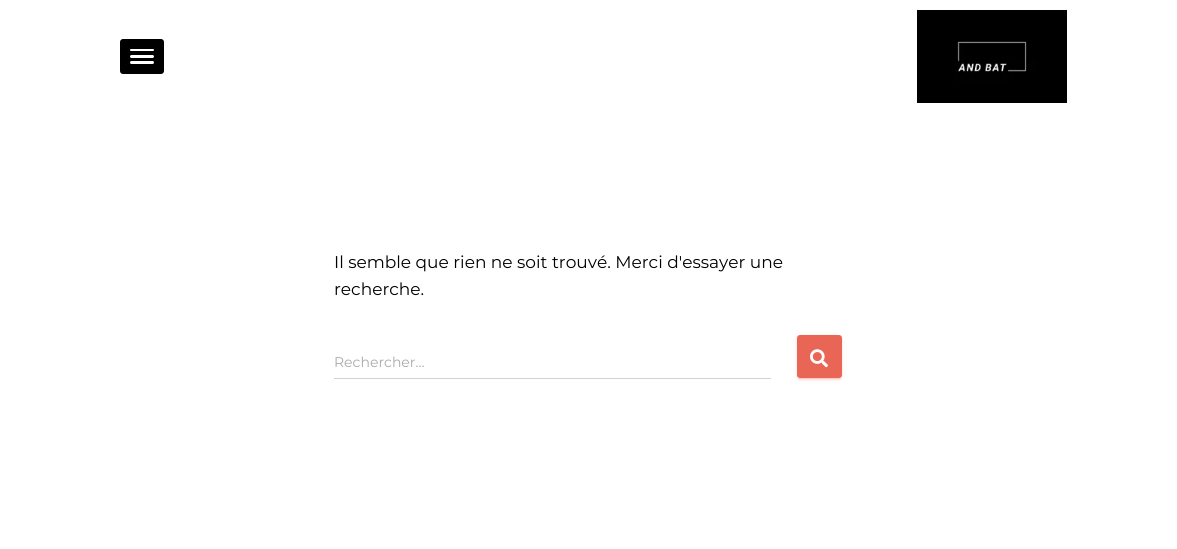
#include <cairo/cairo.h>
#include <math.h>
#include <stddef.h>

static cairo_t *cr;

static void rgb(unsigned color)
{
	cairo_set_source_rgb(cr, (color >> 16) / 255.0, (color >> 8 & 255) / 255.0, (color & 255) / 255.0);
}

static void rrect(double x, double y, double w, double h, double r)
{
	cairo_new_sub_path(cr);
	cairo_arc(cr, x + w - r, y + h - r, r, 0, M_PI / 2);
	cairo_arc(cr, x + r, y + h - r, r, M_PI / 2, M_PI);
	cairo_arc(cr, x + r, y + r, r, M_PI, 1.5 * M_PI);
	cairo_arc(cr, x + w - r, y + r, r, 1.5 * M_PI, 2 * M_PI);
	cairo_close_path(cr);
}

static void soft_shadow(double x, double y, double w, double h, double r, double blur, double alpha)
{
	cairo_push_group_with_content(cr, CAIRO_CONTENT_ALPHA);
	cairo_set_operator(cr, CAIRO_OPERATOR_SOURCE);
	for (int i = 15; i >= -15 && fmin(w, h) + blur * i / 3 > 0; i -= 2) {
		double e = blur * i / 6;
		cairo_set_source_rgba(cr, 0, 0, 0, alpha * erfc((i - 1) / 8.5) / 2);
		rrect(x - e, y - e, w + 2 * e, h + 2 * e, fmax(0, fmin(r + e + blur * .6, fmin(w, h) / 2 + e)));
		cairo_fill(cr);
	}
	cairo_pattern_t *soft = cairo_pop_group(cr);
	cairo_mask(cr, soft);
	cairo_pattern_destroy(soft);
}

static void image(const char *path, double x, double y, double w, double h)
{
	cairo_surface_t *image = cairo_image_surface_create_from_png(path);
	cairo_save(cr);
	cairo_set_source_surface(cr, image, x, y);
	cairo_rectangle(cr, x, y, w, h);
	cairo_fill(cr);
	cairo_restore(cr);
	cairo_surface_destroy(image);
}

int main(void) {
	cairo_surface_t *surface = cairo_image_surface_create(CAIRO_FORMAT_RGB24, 1177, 549);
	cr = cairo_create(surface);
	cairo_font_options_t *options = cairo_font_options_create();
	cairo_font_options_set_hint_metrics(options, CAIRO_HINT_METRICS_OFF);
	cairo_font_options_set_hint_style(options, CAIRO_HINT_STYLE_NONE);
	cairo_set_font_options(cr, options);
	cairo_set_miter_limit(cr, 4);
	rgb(0xffffff);
	cairo_paint(cr);
	rgb(0x000000);
	rrect(120, 39, 44, 35, 3);
	cairo_fill(cr);
	rgb(0xffffff);
	rrect(130, 55, 24, 3, 1.5);
	cairo_fill(cr);
	rrect(130, 49, 24, 2, 1);
	cairo_fill(cr);
	rrect(130, 61, 24, 3, 1.5);
	cairo_fill(cr);
	image("img/1.png", 917, 10, 150, 93);
	rgb(0xe96656);
	soft_shadow(797, 336, 45, 43, 3, 2.5, 0.12);
	soft_shadow(799, 340, 41, 39, 1, 0.5, 0.2);
	soft_shadow(797, 337, 45, 43, 3, 1, 0.14);
	rgb(0xe96656);
	rrect(797, 335, 45, 43, 3);
	cairo_fill(cr);
	rgb(0xd2d2d2);
	cairo_rectangle(cr, 334, 378, 437, 1);
	cairo_fill(cr);
	image("img/2.png", 810, 349, 18, 19);
	cairo_select_font_face(cr, "Montserrat", CAIRO_FONT_SLANT_NORMAL, CAIRO_FONT_WEIGHT_NORMAL);
	cairo_set_font_size(cr, 17);
	rgb(0x000000);
	cairo_move_to(cr, 334, 268);
	cairo_show_text(cr, "Il semble que rien ne soit trouvé. Merci d'essayer une");
	cairo_move_to(cr, 334, 295);
	cairo_show_text(cr, "recherche.");
	cairo_set_font_size(cr, 14);
	rgb(0xaaaaaa);
	cairo_move_to(cr, 334, 367);
	cairo_show_text(cr, "Rechercher…");
	cairo_surface_write_to_png(surface, "page.png");
	cairo_font_options_destroy(options);
	cairo_destroy(cr);
	cairo_surface_destroy(surface);
	return 0;
}
